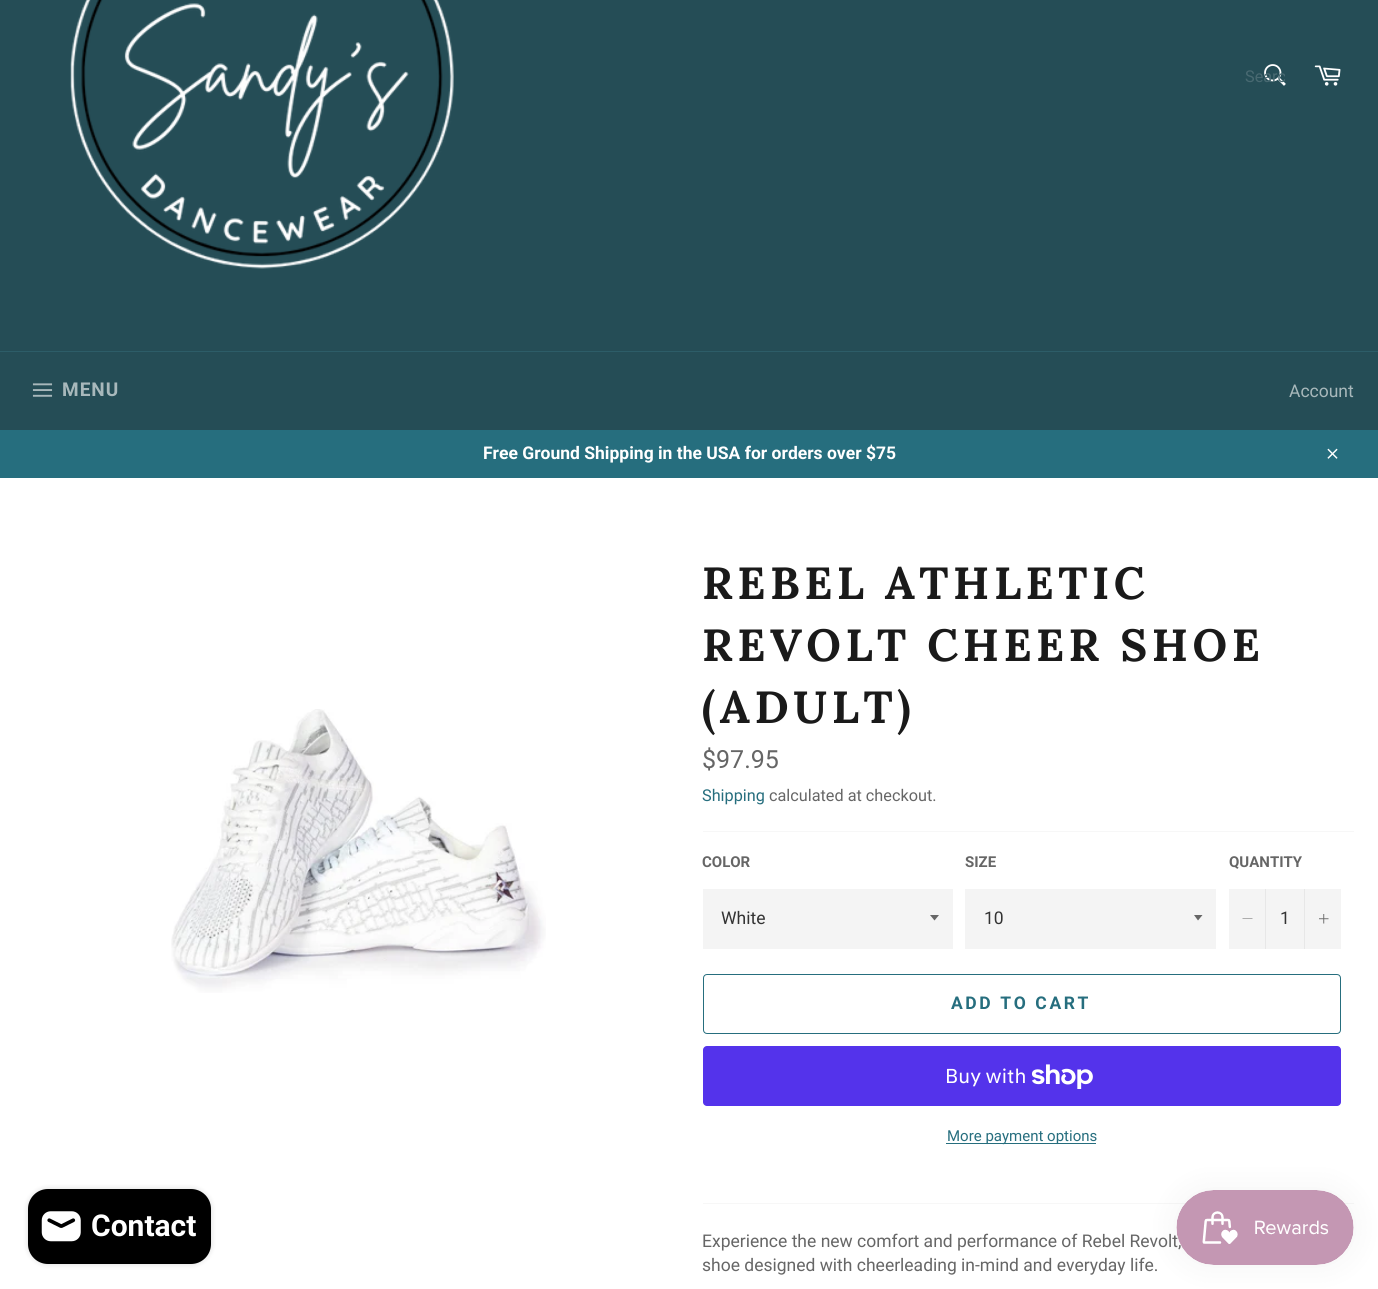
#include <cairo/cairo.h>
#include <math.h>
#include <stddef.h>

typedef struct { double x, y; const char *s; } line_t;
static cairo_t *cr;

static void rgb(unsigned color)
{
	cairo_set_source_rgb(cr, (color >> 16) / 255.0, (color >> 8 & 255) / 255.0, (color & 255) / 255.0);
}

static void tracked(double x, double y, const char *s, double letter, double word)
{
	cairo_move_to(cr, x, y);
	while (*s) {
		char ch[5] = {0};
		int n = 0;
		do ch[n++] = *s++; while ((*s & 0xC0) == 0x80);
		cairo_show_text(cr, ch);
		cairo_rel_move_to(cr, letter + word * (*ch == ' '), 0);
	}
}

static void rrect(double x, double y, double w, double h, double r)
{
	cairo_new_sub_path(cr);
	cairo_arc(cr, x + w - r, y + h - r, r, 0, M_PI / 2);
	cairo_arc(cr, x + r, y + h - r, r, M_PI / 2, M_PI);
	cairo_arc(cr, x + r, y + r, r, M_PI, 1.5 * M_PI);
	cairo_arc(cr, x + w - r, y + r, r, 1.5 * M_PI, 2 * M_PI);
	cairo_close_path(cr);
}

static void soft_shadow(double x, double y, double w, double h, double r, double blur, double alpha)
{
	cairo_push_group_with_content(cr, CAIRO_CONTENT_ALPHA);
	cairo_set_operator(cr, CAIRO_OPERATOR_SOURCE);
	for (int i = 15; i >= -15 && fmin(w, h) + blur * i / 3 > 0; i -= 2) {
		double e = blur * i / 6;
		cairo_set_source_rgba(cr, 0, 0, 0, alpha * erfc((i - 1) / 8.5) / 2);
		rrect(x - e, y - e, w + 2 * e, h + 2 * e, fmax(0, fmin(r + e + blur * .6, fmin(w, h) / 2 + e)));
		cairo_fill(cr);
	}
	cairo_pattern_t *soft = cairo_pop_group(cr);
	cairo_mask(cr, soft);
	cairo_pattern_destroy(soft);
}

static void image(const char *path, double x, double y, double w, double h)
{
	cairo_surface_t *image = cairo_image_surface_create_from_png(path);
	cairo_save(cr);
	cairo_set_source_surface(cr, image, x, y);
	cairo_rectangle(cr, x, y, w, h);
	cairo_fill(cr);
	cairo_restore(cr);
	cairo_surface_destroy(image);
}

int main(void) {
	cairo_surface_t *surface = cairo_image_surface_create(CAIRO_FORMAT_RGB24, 1378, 1289);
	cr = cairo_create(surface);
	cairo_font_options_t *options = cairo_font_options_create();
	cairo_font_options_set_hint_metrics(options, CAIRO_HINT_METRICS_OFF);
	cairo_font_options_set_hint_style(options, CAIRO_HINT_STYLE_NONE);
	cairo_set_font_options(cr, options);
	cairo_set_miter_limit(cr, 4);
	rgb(0x254d56);
	cairo_paint(cr);
	image("img/1.png", 70, 0, 384, 269);
	image("img/2.png", 1264, 64, 22, 22);
	image("img/3.png", 1314, 65, 27, 21);
	rgb(0x2d5d68);
	cairo_rectangle(cr, 0, 351, 1378, 1);
	cairo_fill(cr);
	image("img/4.png", 32, 383, 21, 14);
	rgb(0x266e7e);
	cairo_rectangle(cr, 0, 430, 1378, 48);
	cairo_fill(cr);
	image("img/5.png", 1327, 448, 11, 11);
	rgb(0xffffff);
	cairo_rectangle(cr, 0, 478, 1378, 811);
	cairo_fill(cr);
	image("img/6.png", 171, 709, 375, 284);
	rgb(0xf7f7f7);
	cairo_rectangle(cr, 703, 831, 651, 1);
	cairo_fill(cr);
	rgb(0xf4f4f4);
	cairo_rectangle(cr, 703, 889, 250, 60);
	cairo_fill(cr);
	rgb(0x666666);
	cairo_new_path(cr);
	cairo_move_to(cr, 930, 915);
	cairo_line_to(cr, 934.5, 920.5);
	cairo_line_to(cr, 939, 915);
	cairo_close_path(cr);
	cairo_fill(cr);
	rgb(0xf4f4f4);
	cairo_rectangle(cr, 965, 889, 251, 60);
	cairo_fill(cr);
	rgb(0x666666);
	cairo_new_path(cr);
	cairo_move_to(cr, 1194, 915);
	cairo_line_to(cr, 1198, 920.5);
	cairo_line_to(cr, 1202.5, 915);
	cairo_close_path(cr);
	cairo_fill(cr);
	rgb(0xf4f4f4);
	cairo_rectangle(cr, 1229, 889, 112, 60);
	cairo_fill(cr);
	rgb(0xe7e7e7);
	cairo_rectangle(cr, 1265, 889, 1, 60);
	cairo_fill(cr);
	rgb(0x666666);
	cairo_set_fill_rule(cr, CAIRO_FILL_RULE_EVEN_ODD);
	cairo_new_path(cr);
	cairo_move_to(cr, 1252.5, 918.5);
	cairo_line_to(cr, 1252.5, 919);
	cairo_line_to(cr, 1242.5, 919);
	cairo_line_to(cr, 1242.5, 918.5);
	cairo_close_path(cr);
	cairo_fill(cr);
	rgb(0xe7e7e7);
	cairo_rectangle(cr, 1304, 889, 1, 60);
	cairo_fill(cr);
	image("img/7.png", 1319, 914, 10, 10);
	rrect(703.5, 974.5, 637, 59, 3.5);
	rgb(0x266e7e);
	cairo_set_line_width(cr, 1);
	cairo_stroke(cr);
	rgb(0x5433eb);
	rrect(703, 1046, 638, 60, 4);
	cairo_fill(cr);
	image("img/8.png", 1031, 1064, 62, 25);
	rgb(0x266e7e);
	cairo_rectangle(cr, 946, 1143, 150, 1);
	cairo_fill(cr);
	rgb(0xf7f7f7);
	cairo_rectangle(cr, 703, 1203, 651, 1);
	cairo_fill(cr);
	rgb(0x000000);
	soft_shadow(28, 1189, 183, 75, 20, 3, 0.15);
	rgb(0x000000);
	rrect(28, 1189, 183, 75, 20);
	cairo_fill(cr);
	image("img/9.png", 41, 1211, 40, 31);
	rgb(0x000000);
	soft_shadow(1176, 1190, 178, 75, 37.5, 15.5, 0.05);
	cairo_save(cr);
	cairo_set_fill_rule(cr, CAIRO_FILL_RULE_WINDING);
	cairo_rectangle(cr, 1245, 68, 40, 18);
	cairo_clip(cr);
	cairo_select_font_face(cr, "Roboto", CAIRO_FONT_SLANT_NORMAL, CAIRO_FONT_WEIGHT_NORMAL);
	cairo_set_font_size(cr, 16.25);
	rgb(0x486971);
	cairo_move_to(cr, 1245, 82);
	cairo_show_text(cr, "Searc");
	cairo_restore(cr);
	cairo_select_font_face(cr, "Roboto", CAIRO_FONT_SLANT_NORMAL, CAIRO_FONT_WEIGHT_BOLD);
	cairo_set_font_size(cr, 19);
	rgb(0xa8b8bb);
	tracked(62, 396, "MENU", 1, 0);
	cairo_select_font_face(cr, "Roboto", CAIRO_FONT_SLANT_NORMAL, CAIRO_FONT_WEIGHT_NORMAL);
	cairo_set_font_size(cr, 17.5);
	cairo_move_to(cr, 1289, 397);
	cairo_show_text(cr, "Account");
	cairo_select_font_face(cr, "Roboto", CAIRO_FONT_SLANT_NORMAL, CAIRO_FONT_WEIGHT_BOLD);
	rgb(0xffffff);
	cairo_move_to(cr, 483, 459);
	cairo_show_text(cr, "Free Ground Shipping in the USA for orders over $75");
	cairo_select_font_face(cr, "Lora", CAIRO_FONT_SLANT_NORMAL, CAIRO_FONT_WEIGHT_BOLD);
	cairo_set_font_size(cr, 45);
	rgb(0x1a1a1a);
	{
		static const line_t items[] = {
			{702, 599, "REBEL ATHLETIC"},
			{702, 661, "REVOLT CHEER SHOE"},
			{702, 723, "(ADULT)"},
		};
		for (size_t i = 0; i < sizeof items / sizeof *items; i++) {
			tracked(items[i].x, items[i].y, items[i].s, 4.5, 0);
		}
	}
	cairo_select_font_face(cr, "Roboto", CAIRO_FONT_SLANT_NORMAL, CAIRO_FONT_WEIGHT_NORMAL);
	cairo_set_font_size(cr, 25);
	rgb(0x666666);
	cairo_move_to(cr, 702, 768);
	cairo_show_text(cr, "$97.95");
	cairo_set_font_size(cr, 16.25);
	rgb(0x266e7e);
	cairo_move_to(cr, 702, 801);
	cairo_show_text(cr, "Shipping");
	rgb(0x666666);
	cairo_move_to(cr, 769, 801);
	cairo_show_text(cr, "calculated at checkout.");
	cairo_select_font_face(cr, "Roboto", CAIRO_FONT_SLANT_NORMAL, CAIRO_FONT_WEIGHT_BOLD);
	cairo_set_font_size(cr, 15);
	cairo_move_to(cr, 702, 867);
	cairo_show_text(cr, "COLOR");
	cairo_select_font_face(cr, "Roboto", CAIRO_FONT_SLANT_NORMAL, CAIRO_FONT_WEIGHT_NORMAL);
	cairo_set_font_size(cr, 17.5);
	rgb(0x333333);
	cairo_move_to(cr, 721, 924);
	cairo_show_text(cr, "White");
	cairo_select_font_face(cr, "Roboto", CAIRO_FONT_SLANT_NORMAL, CAIRO_FONT_WEIGHT_BOLD);
	cairo_set_font_size(cr, 15);
	rgb(0x666666);
	cairo_move_to(cr, 965, 867);
	cairo_show_text(cr, "SIZE");
	cairo_select_font_face(cr, "Roboto", CAIRO_FONT_SLANT_NORMAL, CAIRO_FONT_WEIGHT_NORMAL);
	cairo_set_font_size(cr, 17.5);
	rgb(0x333333);
	cairo_move_to(cr, 984, 924);
	cairo_show_text(cr, "10");
	cairo_select_font_face(cr, "Roboto", CAIRO_FONT_SLANT_NORMAL, CAIRO_FONT_WEIGHT_BOLD);
	cairo_set_font_size(cr, 15);
	rgb(0x666666);
	cairo_move_to(cr, 1229, 867);
	cairo_show_text(cr, "QUANTITY");
	cairo_select_font_face(cr, "Roboto", CAIRO_FONT_SLANT_NORMAL, CAIRO_FONT_WEIGHT_NORMAL);
	cairo_set_font_size(cr, 17.5);
	rgb(0x333333);
	cairo_move_to(cr, 1280, 924);
	cairo_show_text(cr, "1");
	cairo_select_font_face(cr, "Roboto", CAIRO_FONT_SLANT_NORMAL, CAIRO_FONT_WEIGHT_BOLD);
	rgb(0x266e7e);
	tracked(951, 1009, "ADD TO CART", 2.6, 0);
	cairo_select_font_face(cr, "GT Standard", CAIRO_FONT_SLANT_NORMAL, CAIRO_FONT_WEIGHT_NORMAL);
	cairo_set_font_size(cr, 20);
	rgb(0xffffff);
	cairo_move_to(cr, 945, 1083);
	cairo_show_text(cr, "Buy with");
	cairo_select_font_face(cr, "Roboto", CAIRO_FONT_SLANT_NORMAL, CAIRO_FONT_WEIGHT_NORMAL);
	cairo_set_font_size(cr, 15);
	rgb(0x266e7e);
	cairo_move_to(cr, 947, 1141);
	cairo_show_text(cr, "More payment options");
	cairo_set_font_size(cr, 17.5);
	rgb(0x666666);
	cairo_move_to(cr, 702, 1247);
	cairo_show_text(cr, "Experience the new comfort and performance of Rebel Revolt,");
	cairo_move_to(cr, 702, 1271);
	cairo_show_text(cr, "shoe designed with cheerleading in-mind and everyday life.");
	cairo_select_font_face(cr, "Roboto", CAIRO_FONT_SLANT_NORMAL, CAIRO_FONT_WEIGHT_BOLD);
	cairo_set_font_size(cr, 30);
	rgb(0xffffff);
	cairo_move_to(cr, 91, 1236);
	cairo_show_text(cr, "Contact");
	image("img/10.png", 1176, 1190, 178, 75);
	cairo_surface_write_to_png(surface, "page.png");
	cairo_font_options_destroy(options);
	cairo_destroy(cr);
	cairo_surface_destroy(surface);
	return 0;
}
